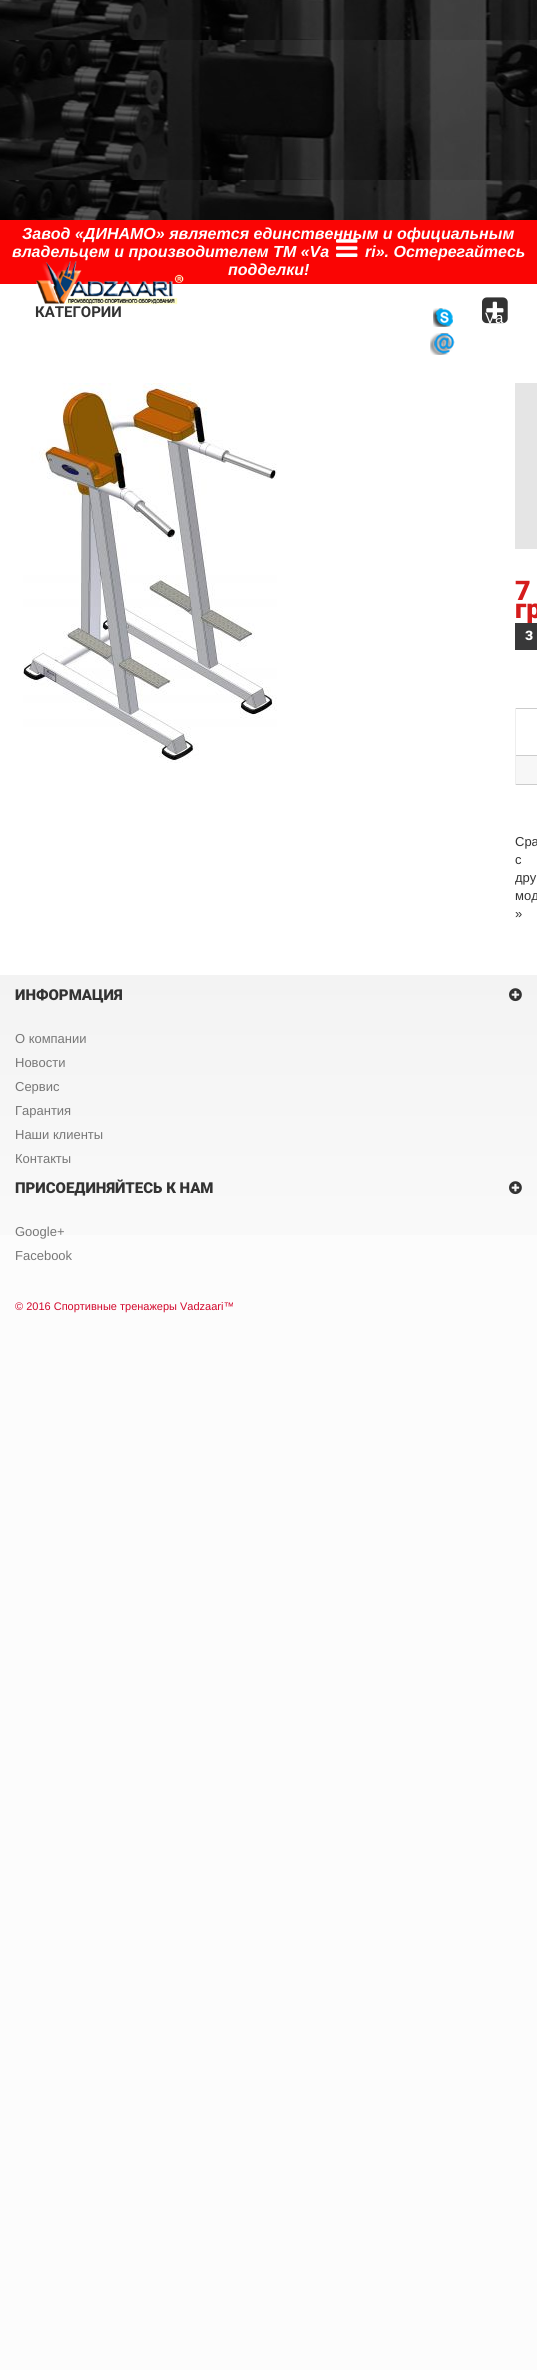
#include <cairo/cairo.h>
#include <math.h>
#include <stddef.h>

typedef struct { double x, y; const char *s; } line_t;
typedef struct { double x, y, w, h; unsigned color; } box_t;
static cairo_t *cr;

static void rgb(unsigned color)
{
	cairo_set_source_rgb(cr, (color >> 16) / 255.0, (color >> 8 & 255) / 255.0, (color & 255) / 255.0);
}

static void image(const char *path, double x, double y, double w, double h)
{
	cairo_surface_t *image = cairo_image_surface_create_from_png(path);
	cairo_save(cr);
	cairo_set_source_surface(cr, image, x, y);
	cairo_rectangle(cr, x, y, w, h);
	cairo_fill(cr);
	cairo_restore(cr);
	cairo_surface_destroy(image);
}

int main(void) {
	cairo_surface_t *surface = cairo_image_surface_create(CAIRO_FORMAT_RGB24, 537, 2370);
	cr = cairo_create(surface);
	cairo_font_options_t *options = cairo_font_options_create();
	cairo_font_options_set_hint_metrics(options, CAIRO_HINT_METRICS_OFF);
	cairo_font_options_set_hint_style(options, CAIRO_HINT_STYLE_NONE);
	cairo_set_font_options(cr, options);
	cairo_set_miter_limit(cr, 4);
	cairo_pattern_t *gradient;
	rgb(0xfcfcfc);
	cairo_paint(cr);
	rgb(0xffffff);
	cairo_rectangle(cr, 0, 284, 537, 691);
	cairo_fill(cr);
	rgb(0xfa0504);
	cairo_rectangle(cr, 0, 220, 537, 64);
	cairo_fill(cr);
	image("img/1.png", 482, 297, 26, 27);
	image("img/2.png", 0, 0, 537, 220);
	image("img/4.png", 36, 261, 148, 44);
	image("img/5.png", 433, 308, 20, 19);
	image("img/6.png", 430, 333, 25, 22);
	image("img/7.png", 23, 383, 254, 380);
	{
		static const box_t items[] = {
			{515, 383, 22, 166, 0xe5e5e5},
			{515, 708, 22, 1, 0xcccccc},
			{515, 784, 22, 1, 0xcccccc},
			{515, 755, 1, 30, 0xeeeeee},
			{515, 755, 22, 1, 0xcccccc},
			{515, 708, 1, 48, 0xeeeeee},
			{516, 756, 21, 28, 0xf7f7f7},
		};
		for (size_t i = 0; i < sizeof items / sizeof *items; i++) {
			rgb(items[i].color);
			cairo_rectangle(cr, items[i].x, items[i].y, items[i].w, items[i].h);
			cairo_fill(cr);
		}
	}
	gradient = cairo_pattern_create_linear(269, 975, 269, 1335);
	cairo_pattern_add_color_stop_rgba(gradient, 0, 0.953, 0.953, 0.953, 1);
	cairo_pattern_add_color_stop_rgba(gradient, 1, 0.988, 0.988, 0.988, 1);
	cairo_set_source(cr, gradient);
	cairo_pattern_destroy(gradient);
	cairo_rectangle(cr, 0, 975, 537, 260);
	cairo_fill(cr);
	image("img/8.png", 509, 988, 13, 14);
	image("img/9.png", 509, 1181, 13, 14);
	cairo_select_font_face(cr, "Liberation Sans", CAIRO_FONT_SLANT_ITALIC, CAIRO_FONT_WEIGHT_BOLD);
	cairo_set_font_size(cr, 16);
	rgb(0xffffff);
	{
		static const line_t items[] = {
			{22, 239, "Завод «ДИНАМО» является единственным и официальным"},
			{12, 257, "владельцем и производителем ТМ «Va"},
			{365, 257, "ri». Остерегайтесь"},
			{228, 275, "подделки!"},
		};
		for (size_t i = 0; i < sizeof items / sizeof *items; i++) {
			cairo_move_to(cr, items[i].x, items[i].y);
			cairo_show_text(cr, items[i].s);
		}
	}
	cairo_select_font_face(cr, "Roboto", CAIRO_FONT_SLANT_NORMAL, CAIRO_FONT_WEIGHT_BOLD);
	cairo_set_font_size(cr, 15);
	rgb(0x333333);
	cairo_move_to(cr, 35, 317);
	cairo_show_text(cr, "КАТЕГОРИИ");
	image("img/3.png", 336, 239, 22, 18);
	cairo_select_font_face(cr, "Liberation Sans", CAIRO_FONT_SLANT_NORMAL, CAIRO_FONT_WEIGHT_NORMAL);
	rgb(0xffffff);
	cairo_move_to(cr, 485, 323);
	cairo_show_text(cr, "Va");
	cairo_select_font_face(cr, "Roboto Black", CAIRO_FONT_SLANT_NORMAL, CAIRO_FONT_WEIGHT_NORMAL);
	cairo_set_font_size(cr, 27);
	rgb(0xd51c1c);
	cairo_move_to(cr, 515, 600);
	cairo_show_text(cr, "7");
	cairo_move_to(cr, 515, 618);
	cairo_show_text(cr, "гр");
	rgb(0x383839);
	cairo_rectangle(cr, 515, 623, 22, 27);
	cairo_fill(cr);
	cairo_set_font_size(cr, 13);
	rgb(0xffffff);
	cairo_move_to(cr, 525, 640);
	cairo_show_text(cr, "З");
	cairo_select_font_face(cr, "Liberation Sans", CAIRO_FONT_SLANT_NORMAL, CAIRO_FONT_WEIGHT_NORMAL);
	rgb(0x333333);
	{
		static const line_t items[] = {
			{515, 846, "Сра"},
			{515, 864, "с"},
			{515, 882, "дру"},
			{515, 900, "мод"},
			{515, 918, "»"},
		};
		for (size_t i = 0; i < sizeof items / sizeof *items; i++) {
			cairo_move_to(cr, items[i].x, items[i].y);
			cairo_show_text(cr, items[i].s);
		}
	}
	cairo_select_font_face(cr, "Roboto Black", CAIRO_FONT_SLANT_NORMAL, CAIRO_FONT_WEIGHT_NORMAL);
	cairo_set_font_size(cr, 15);
	cairo_move_to(cr, 15, 1000);
	cairo_show_text(cr, "ИНФОРМАЦИЯ");
	cairo_select_font_face(cr, "Liberation Sans", CAIRO_FONT_SLANT_NORMAL, CAIRO_FONT_WEIGHT_NORMAL);
	cairo_set_font_size(cr, 13);
	rgb(0x777777);
	{
		static const line_t items[] = {
			{15, 1043, "О компании"},
			{15, 1067, "Новости"},
			{15, 1091, "Сервис"},
			{15, 1115, "Гарантия"},
			{15, 1139, "Наши клиенты"},
			{15, 1163, "Контакты"},
		};
		for (size_t i = 0; i < sizeof items / sizeof *items; i++) {
			cairo_move_to(cr, items[i].x, items[i].y);
			cairo_show_text(cr, items[i].s);
		}
	}
	cairo_select_font_face(cr, "Roboto Black", CAIRO_FONT_SLANT_NORMAL, CAIRO_FONT_WEIGHT_NORMAL);
	cairo_set_font_size(cr, 15);
	rgb(0x333333);
	cairo_move_to(cr, 15, 1193);
	cairo_show_text(cr, "ПРИСОЕДИНЯЙТЕСЬ К НАМ");
	cairo_select_font_face(cr, "Liberation Sans", CAIRO_FONT_SLANT_NORMAL, CAIRO_FONT_WEIGHT_NORMAL);
	cairo_set_font_size(cr, 13);
	rgb(0x777777);
	cairo_move_to(cr, 15, 1236);
	cairo_show_text(cr, "Google+");
	cairo_move_to(cr, 15, 1260);
	cairo_show_text(cr, "Facebook");
	cairo_set_font_size(cr, 11);
	rgb(0xd2092d);
	cairo_move_to(cr, 15, 1310);
	cairo_show_text(cr, "© 2016 Спортивные тренажеры Vadzaari™");
	cairo_surface_write_to_png(surface, "page.png");
	cairo_font_options_destroy(options);
	cairo_destroy(cr);
	cairo_surface_destroy(surface);
	return 0;
}
